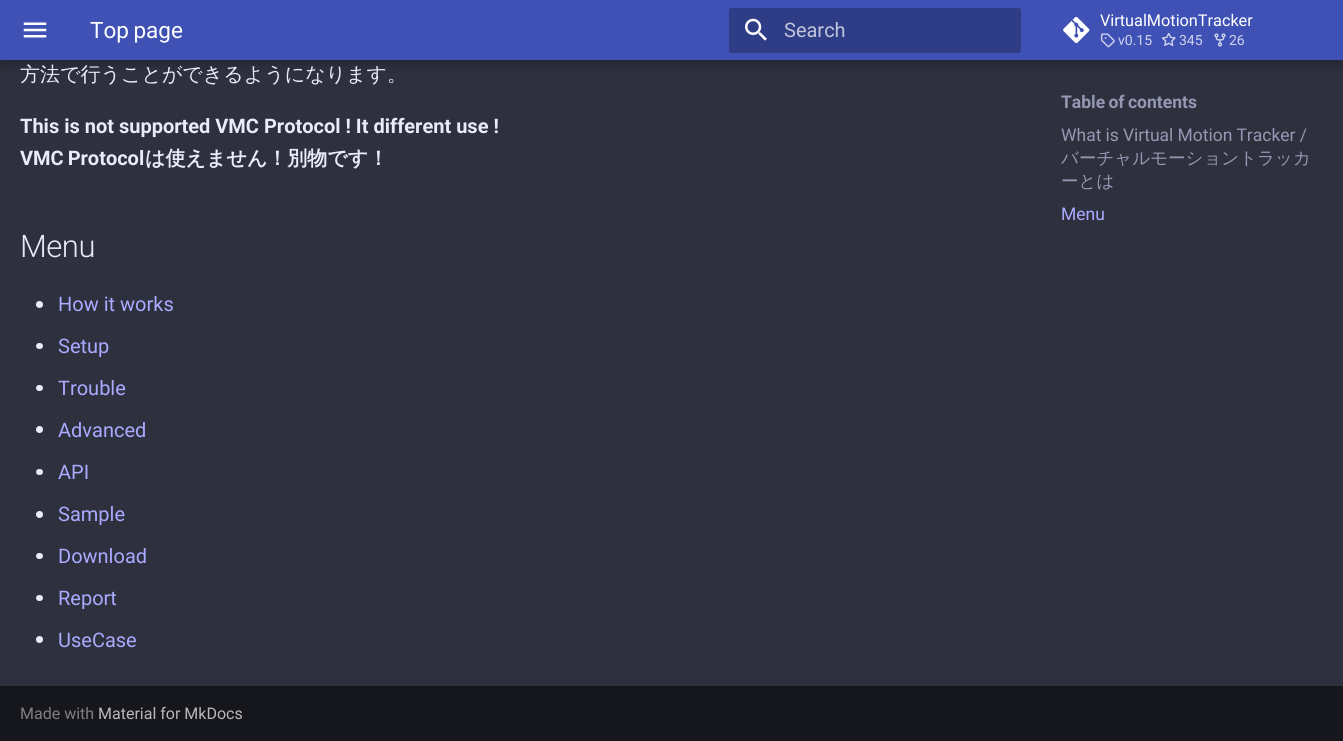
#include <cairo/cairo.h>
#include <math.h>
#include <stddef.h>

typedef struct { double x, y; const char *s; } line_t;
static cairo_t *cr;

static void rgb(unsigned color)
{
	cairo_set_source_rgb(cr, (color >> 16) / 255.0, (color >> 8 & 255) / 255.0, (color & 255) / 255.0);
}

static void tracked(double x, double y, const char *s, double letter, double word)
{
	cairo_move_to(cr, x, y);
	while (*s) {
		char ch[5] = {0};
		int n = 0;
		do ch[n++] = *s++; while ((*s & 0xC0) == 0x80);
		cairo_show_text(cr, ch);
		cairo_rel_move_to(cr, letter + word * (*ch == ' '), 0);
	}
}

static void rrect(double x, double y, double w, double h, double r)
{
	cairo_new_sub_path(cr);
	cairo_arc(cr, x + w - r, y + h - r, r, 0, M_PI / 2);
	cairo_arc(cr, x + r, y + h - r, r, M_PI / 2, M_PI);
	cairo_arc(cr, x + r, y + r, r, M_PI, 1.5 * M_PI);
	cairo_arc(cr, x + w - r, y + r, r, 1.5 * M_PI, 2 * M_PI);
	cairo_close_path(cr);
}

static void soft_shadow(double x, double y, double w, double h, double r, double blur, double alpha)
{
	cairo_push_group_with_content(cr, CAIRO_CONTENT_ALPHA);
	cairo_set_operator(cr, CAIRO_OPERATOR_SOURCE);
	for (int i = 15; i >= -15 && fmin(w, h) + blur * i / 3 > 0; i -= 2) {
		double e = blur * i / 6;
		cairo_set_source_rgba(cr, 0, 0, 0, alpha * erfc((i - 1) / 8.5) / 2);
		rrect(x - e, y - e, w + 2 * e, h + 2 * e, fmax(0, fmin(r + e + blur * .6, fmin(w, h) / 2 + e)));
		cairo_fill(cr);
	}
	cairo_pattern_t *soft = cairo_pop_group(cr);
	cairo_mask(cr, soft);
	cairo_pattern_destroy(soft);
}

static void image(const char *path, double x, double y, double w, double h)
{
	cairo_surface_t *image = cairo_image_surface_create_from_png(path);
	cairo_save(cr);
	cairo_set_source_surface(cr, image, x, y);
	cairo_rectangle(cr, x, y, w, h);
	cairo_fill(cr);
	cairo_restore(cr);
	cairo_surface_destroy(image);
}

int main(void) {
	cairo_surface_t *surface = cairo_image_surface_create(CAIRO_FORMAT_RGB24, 1343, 741);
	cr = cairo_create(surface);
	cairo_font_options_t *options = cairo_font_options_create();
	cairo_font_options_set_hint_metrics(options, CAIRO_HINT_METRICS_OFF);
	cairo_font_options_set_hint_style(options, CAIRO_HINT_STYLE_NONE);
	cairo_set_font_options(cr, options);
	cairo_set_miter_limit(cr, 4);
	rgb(0x2e303e);
	cairo_paint(cr);
	rgb(0x000000);
	soft_shadow(0, 5, 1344, 60, 0, 5, 0.2);
	rgb(0x4051b5);
	cairo_rectangle(cr, 0, 0, 1343, 60);
	cairo_fill(cr);
	image("img/1.png", 23, 22, 24, 16);
	rgb(0x2f3c86);
	rrect(729, 8, 292, 45, 2.5);
	cairo_fill(cr);
	image("img/2.png", 745, 18, 22, 23);
	image("img/3.png", 1063, 16, 27, 28);
	image("img/4.png", 1100, 33, 15, 15);
	image("img/5.png", 1161, 33, 15, 13);
	image("img/6.png", 1214, 33, 12, 14);
	rgb(0xe9ebfc);
	cairo_arc(cr, 39.5, 304.5, 3.5, 0, 2 * M_PI);
	cairo_fill(cr);
	rrect(36, 343, 7, 6, 3);
	cairo_fill(cr);
	rrect(36, 385, 7, 6, 3);
	cairo_fill(cr);
	cairo_arc(cr, 39.5, 429.5, 3.5, 0, 2 * M_PI);
	cairo_fill(cr);
	rrect(36, 469, 7, 6, 3);
	cairo_fill(cr);
	cairo_arc(cr, 39.5, 514.5, 3.5, 0, 2 * M_PI);
	cairo_fill(cr);
	rrect(36, 553, 7, 6, 3);
	cairo_fill(cr);
	rrect(36, 595, 7, 6, 3);
	cairo_fill(cr);
	cairo_arc(cr, 39.5, 639.5, 3.5, 0, 2 * M_PI);
	cairo_fill(cr);
	cairo_save(cr);
	cairo_rectangle(cr, 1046, 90, 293, 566);
	cairo_clip(cr);
	cairo_set_fill_rule(cr, CAIRO_FILL_RULE_EVEN_ODD);
	cairo_new_path(cr);
	cairo_move_to(cr, 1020, 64);
	cairo_line_to(cr, 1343, 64);
	cairo_line_to(cr, 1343, 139);
	cairo_line_to(cr, 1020, 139);
	cairo_close_path(cr);
	cairo_move_to(cr, 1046, 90);
	cairo_line_to(cr, 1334, 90);
	cairo_line_to(cr, 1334, 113);
	cairo_line_to(cr, 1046, 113);
	cairo_close_path(cr);
	cairo_clip(cr);
	rgb(0x2e303e);
	soft_shadow(1036, 80, 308, 43, 0, 5, 1);
	cairo_restore(cr);
	rgb(0x16171d);
	cairo_rectangle(cr, 0, 686, 1343, 55);
	cairo_fill(cr);
	cairo_select_font_face(cr, "Roboto", CAIRO_FONT_SLANT_NORMAL, CAIRO_FONT_WEIGHT_NORMAL);
	cairo_set_font_size(cr, 22.5);
	rgb(0xffffff);
	tracked(90, 38, "Top page", 0, -1);
	cairo_set_font_size(cr, 20);
	rgb(0xc1c5db);
	cairo_move_to(cr, 784, 37);
	cairo_show_text(cr, "Search");
	cairo_set_font_size(cr, 16.25);
	rgb(0xffffff);
	cairo_move_to(cr, 1100, 26);
	cairo_show_text(cr, "VirtualMotionTracker");
	cairo_set_font_size(cr, 14);
	rgb(0xcfd4ed);
	{
		static const line_t items[] = {
			{1118, 45, "v0.15"},
			{1179, 45, "345"},
			{1229, 45, "26"},
		};
		for (size_t i = 0; i < sizeof items / sizeof *items; i++) {
			cairo_move_to(cr, items[i].x, items[i].y);
			cairo_show_text(cr, items[i].s);
		}
	}
	cairo_select_font_face(cr, "WenQuanYi Zen Hei Medium", CAIRO_FONT_SLANT_NORMAL, CAIRO_FONT_WEIGHT_NORMAL);
	cairo_set_font_size(cr, 20);
	rgb(0xe9ebfc);
	cairo_move_to(cr, 20, 81);
	cairo_show_text(cr, "方法で行うことができるようになります。");
	cairo_select_font_face(cr, "Roboto", CAIRO_FONT_SLANT_NORMAL, CAIRO_FONT_WEIGHT_BOLD);
	cairo_move_to(cr, 20, 133);
	cairo_show_text(cr, "This is not supported VMC Protocol ! It different use !");
	tracked(20, 165, "VMC Protocol", 0, -1);
	cairo_select_font_face(cr, "WenQuanYi Zen Hei", CAIRO_FONT_SLANT_NORMAL, CAIRO_FONT_WEIGHT_BOLD);
	cairo_move_to(cr, 145, 165);
	cairo_show_text(cr, "は使えません！別物です！");
	cairo_select_font_face(cr, "Roboto Light", CAIRO_FONT_SLANT_NORMAL, CAIRO_FONT_WEIGHT_NORMAL);
	cairo_set_font_size(cr, 31);
	tracked(20, 257, "Menu", -0.5, 0);
	cairo_select_font_face(cr, "Roboto", CAIRO_FONT_SLANT_NORMAL, CAIRO_FONT_WEIGHT_NORMAL);
	cairo_set_font_size(cr, 20);
	rgb(0xaaaaff);
	{
		static const line_t items[] = {
			{58, 311, "How it works"},
			{58, 353, "Setup"},
			{58, 395, "Trouble"},
			{58, 437, "Advanced"},
			{58, 479, "API"},
			{58, 521, "Sample"},
			{58, 563, "Download"},
			{58, 605, "Report"},
			{58, 647, "UseCase"},
		};
		for (size_t i = 0; i < sizeof items / sizeof *items; i++) {
			cairo_move_to(cr, items[i].x, items[i].y);
			cairo_show_text(cr, items[i].s);
		}
	}
	cairo_select_font_face(cr, "Roboto", CAIRO_FONT_SLANT_NORMAL, CAIRO_FONT_WEIGHT_BOLD);
	cairo_set_font_size(cr, 17.5);
	rgb(0x9498b2);
	tracked(1061, 108, "Table of contents", 0, -1);
	cairo_select_font_face(cr, "Roboto", CAIRO_FONT_SLANT_NORMAL, CAIRO_FONT_WEIGHT_NORMAL);
	tracked(1061, 141, "What is Virtual Motion Tracker /", 0, -0.25);
	cairo_select_font_face(cr, "WenQuanYi Zen Hei Medium", CAIRO_FONT_SLANT_NORMAL, CAIRO_FONT_WEIGHT_NORMAL);
	cairo_move_to(cr, 1061, 164);
	cairo_show_text(cr, "バーチャルモーショントラッカ");
	cairo_move_to(cr, 1061, 187);
	cairo_show_text(cr, "ーとは");
	cairo_select_font_face(cr, "Roboto", CAIRO_FONT_SLANT_NORMAL, CAIRO_FONT_WEIGHT_NORMAL);
	rgb(0xaaaaff);
	cairo_move_to(cr, 1061, 220);
	cairo_show_text(cr, "Menu");
	cairo_set_font_size(cr, 16);
	rgb(0x7f7f83);
	cairo_move_to(cr, 20, 719);
	cairo_show_text(cr, "Made with");
	rgb(0xb9b9bb);
	cairo_move_to(cr, 98, 719);
	cairo_show_text(cr, "Material for MkDocs");
	cairo_surface_write_to_png(surface, "page.png");
	cairo_font_options_destroy(options);
	cairo_destroy(cr);
	cairo_surface_destroy(surface);
	return 0;
}
